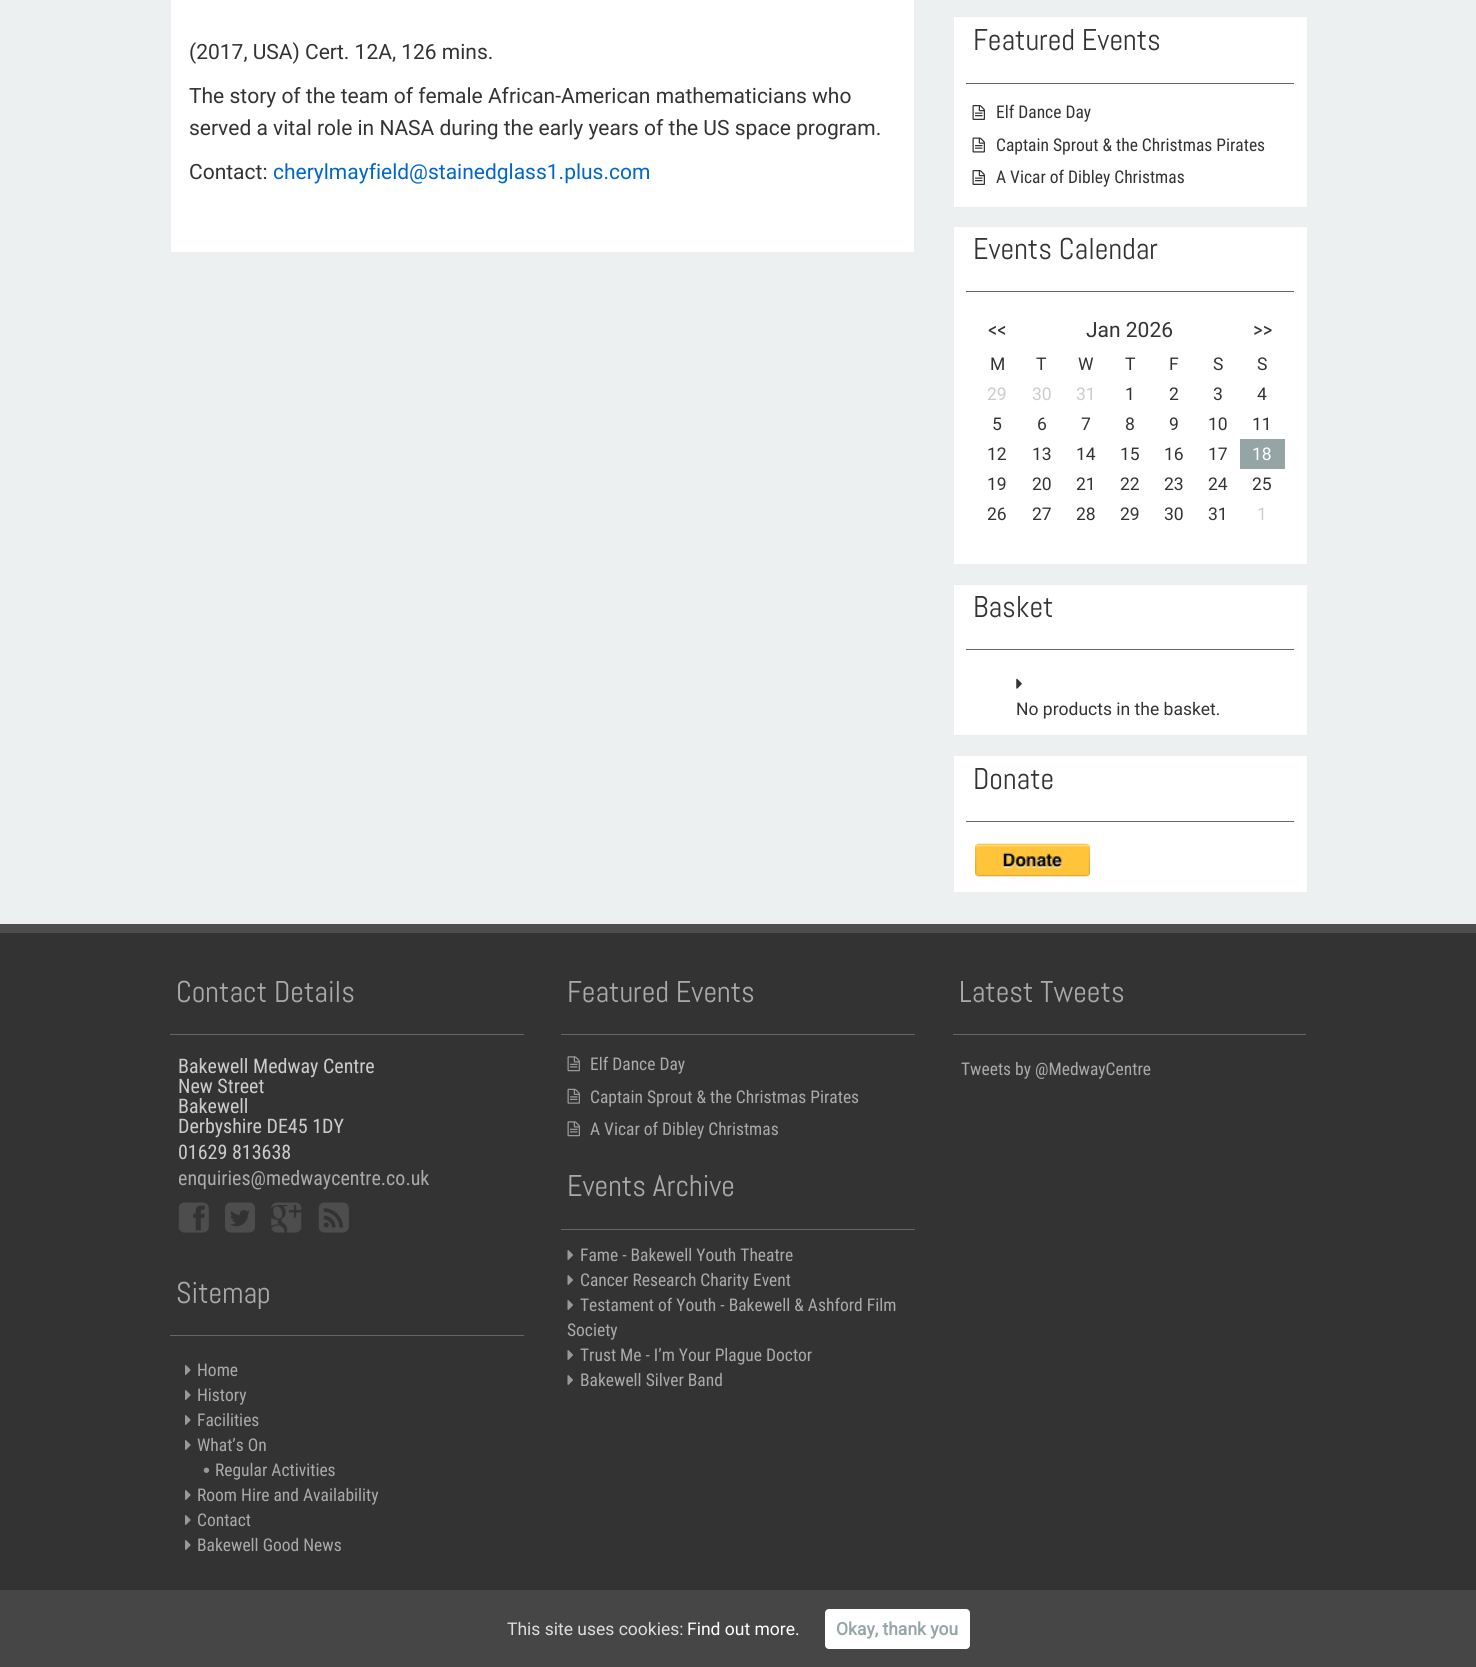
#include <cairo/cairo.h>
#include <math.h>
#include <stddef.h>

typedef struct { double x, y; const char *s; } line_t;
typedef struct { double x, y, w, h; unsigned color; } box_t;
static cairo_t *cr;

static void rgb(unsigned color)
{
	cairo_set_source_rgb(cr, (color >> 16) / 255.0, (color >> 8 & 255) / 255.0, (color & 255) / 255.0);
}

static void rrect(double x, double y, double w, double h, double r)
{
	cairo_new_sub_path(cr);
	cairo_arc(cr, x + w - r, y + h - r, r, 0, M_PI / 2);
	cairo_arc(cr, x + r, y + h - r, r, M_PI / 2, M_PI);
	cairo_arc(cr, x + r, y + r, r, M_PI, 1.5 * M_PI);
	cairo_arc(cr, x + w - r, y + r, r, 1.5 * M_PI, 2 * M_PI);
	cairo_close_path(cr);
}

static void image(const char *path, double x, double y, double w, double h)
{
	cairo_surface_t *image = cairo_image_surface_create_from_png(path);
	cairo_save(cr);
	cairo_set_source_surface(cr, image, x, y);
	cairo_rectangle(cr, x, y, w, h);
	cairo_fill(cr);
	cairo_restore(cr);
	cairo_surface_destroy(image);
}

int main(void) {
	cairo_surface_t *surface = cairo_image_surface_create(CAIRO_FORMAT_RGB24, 1476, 1667);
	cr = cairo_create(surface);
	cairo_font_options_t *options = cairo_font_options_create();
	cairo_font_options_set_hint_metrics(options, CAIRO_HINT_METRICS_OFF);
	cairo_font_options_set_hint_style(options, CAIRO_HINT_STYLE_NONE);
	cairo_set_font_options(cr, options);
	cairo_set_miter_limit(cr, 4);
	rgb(0xecf0f1);
	cairo_paint(cr);
	rgb(0xffffff);
	cairo_rectangle(cr, 170.5, -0.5, 744, 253);
	cairo_fill_preserve(cr);
	rgb(0xeeeeee);
	cairo_set_line_width(cr, 1);
	cairo_stroke(cr);
	rgb(0xffffff);
	cairo_rectangle(cr, 953.5, 16.5, 354, 191);
	cairo_fill_preserve(cr);
	rgb(0xeeeeee);
	cairo_stroke(cr);
	rgb(0x666666);
	cairo_rectangle(cr, 966, 83, 328, 1);
	cairo_fill(cr);
	image("img/1.png", 972, 105, 13, 15);
	image("img/2.png", 972, 137, 13, 16);
	image("img/1.png", 972, 170, 13, 15);
	rgb(0xffffff);
	cairo_rectangle(cr, 953.5, 226.5, 354, 338);
	cairo_fill_preserve(cr);
	rgb(0xeeeeee);
	cairo_stroke(cr);
	rgb(0x666666);
	cairo_rectangle(cr, 966, 291, 328, 1);
	cairo_fill(cr);
	rgb(0x95a5a6);
	cairo_rectangle(cr, 1240, 439, 45, 30);
	cairo_fill(cr);
	rgb(0xffffff);
	cairo_rectangle(cr, 953.5, 584.5, 354, 151);
	cairo_fill_preserve(cr);
	rgb(0xeeeeee);
	cairo_stroke(cr);
	rgb(0x666666);
	cairo_rectangle(cr, 966, 649, 328, 1);
	cairo_fill(cr);
	image("img/3.png", 1016, 678, 6, 11);
	rgb(0xffffff);
	cairo_rectangle(cr, 953.5, 755.5, 354, 137);
	cairo_fill_preserve(cr);
	rgb(0xeeeeee);
	cairo_stroke(cr);
	rgb(0x666666);
	cairo_rectangle(cr, 966, 821, 328, 1);
	cairo_fill(cr);
	image("img/4.png", 975, 843, 115, 34);
	{
		static const box_t items[] = {
			{0, 933, 1476, 657, 0x333333},
			{0, 924, 1476, 9, 0x4d4d4d},
			{170, 1034, 354, 1, 0x666666},
		};
		for (size_t i = 0; i < sizeof items / sizeof *items; i++) {
			rgb(items[i].color);
			cairo_rectangle(cr, items[i].x, items[i].y, items[i].w, items[i].h);
			cairo_fill(cr);
		}
	}
	image("img/5.png", 178, 1202, 31, 31);
	image("img/6.png", 225, 1202, 30, 31);
	image("img/7.png", 271, 1202, 31, 31);
	image("img/8.png", 318, 1202, 31, 31);
	cairo_rectangle(cr, 170, 1335, 354, 1);
	cairo_fill(cr);
	image("img/9.png", 185, 1365, 6, 10);
	image("img/9.png", 185, 1390, 6, 10);
	image("img/9.png", 185, 1415, 6, 10);
	image("img/9.png", 185, 1440, 6, 10);
	image("img/10.png", 203, 1467, 7, 6);
	image("img/9.png", 185, 1490, 6, 10);
	image("img/9.png", 185, 1515, 6, 10);
	image("img/9.png", 185, 1540, 6, 10);
	cairo_rectangle(cr, 561, 1034, 354, 1);
	cairo_fill(cr);
	image("img/11.png", 567, 1056, 13, 16);
	image("img/12.png", 567, 1088, 13, 16);
	image("img/11.png", 567, 1121, 13, 16);
	cairo_rectangle(cr, 561, 1229, 354, 1);
	cairo_fill(cr);
	image("img/13.png", 567, 1250, 6, 10);
	image("img/13.png", 567, 1275, 6, 10);
	image("img/13.png", 567, 1300, 6, 10);
	image("img/13.png", 567, 1350, 6, 10);
	image("img/13.png", 567, 1375, 6, 10);
	cairo_rectangle(cr, 953, 1034, 353, 1);
	cairo_fill(cr);
	rgb(0x464646);
	cairo_rectangle(cr, 0, 1590, 1476, 77);
	cairo_fill(cr);
	rgb(0xffffff);
	rrect(825, 1609, 145, 40, 4);
	cairo_fill(cr);
	cairo_select_font_face(cr, "Roboto", CAIRO_FONT_SLANT_NORMAL, CAIRO_FONT_WEIGHT_NORMAL);
	cairo_set_font_size(cr, 21);
	rgb(0x333333);
	{
		static const line_t items[] = {
			{189, 59, "(2017, USA) Cert. 12A, 126 mins."},
			{189, 103, "The story of the team of female African-American mathematicians who"},
			{189, 135, "served a vital role in NASA during the early years of the US space program."},
			{189, 179, "Contact:"},
		};
		for (size_t i = 0; i < sizeof items / sizeof *items; i++) {
			cairo_move_to(cr, items[i].x, items[i].y);
			cairo_show_text(cr, items[i].s);
		}
	}
	rgb(0x0066cc);
	cairo_move_to(cr, 273, 179);
	cairo_show_text(cr, "cherylmayfield@stainedglass1.plus.com");
	cairo_select_font_face(cr, "Abel", CAIRO_FONT_SLANT_NORMAL, CAIRO_FONT_WEIGHT_NORMAL);
	cairo_set_font_size(cr, 30);
	rgb(0x333333);
	cairo_move_to(cr, 973, 50);
	cairo_show_text(cr, "Featured Events");
	cairo_select_font_face(cr, "Roboto Condensed", CAIRO_FONT_SLANT_NORMAL, CAIRO_FONT_WEIGHT_NORMAL);
	cairo_set_font_size(cr, 17.5);
	{
		static const line_t items[] = {
			{996, 118, "Elf Dance Day"},
			{996, 151, "Captain Sprout & the Christmas Pirates"},
			{996, 183, "A Vicar of Dibley Christmas"},
		};
		for (size_t i = 0; i < sizeof items / sizeof *items; i++) {
			cairo_move_to(cr, items[i].x, items[i].y);
			cairo_show_text(cr, items[i].s);
		}
	}
	cairo_select_font_face(cr, "Abel", CAIRO_FONT_SLANT_NORMAL, CAIRO_FONT_WEIGHT_NORMAL);
	cairo_set_font_size(cr, 30);
	cairo_move_to(cr, 973, 259);
	cairo_show_text(cr, "Events Calendar");
	cairo_select_font_face(cr, "Roboto Condensed", CAIRO_FONT_SLANT_NORMAL, CAIRO_FONT_WEIGHT_NORMAL);
	cairo_set_font_size(cr, 21);
	cairo_move_to(cr, 988, 337);
	cairo_show_text(cr, "<<");
	cairo_select_font_face(cr, "Roboto", CAIRO_FONT_SLANT_NORMAL, CAIRO_FONT_WEIGHT_NORMAL);
	cairo_move_to(cr, 1086, 337);
	cairo_show_text(cr, "Jan 2026");
	cairo_select_font_face(cr, "Roboto Condensed", CAIRO_FONT_SLANT_NORMAL, CAIRO_FONT_WEIGHT_NORMAL);
	cairo_move_to(cr, 1253, 337);
	cairo_show_text(cr, ">>");
	cairo_select_font_face(cr, "Roboto", CAIRO_FONT_SLANT_NORMAL, CAIRO_FONT_WEIGHT_NORMAL);
	cairo_set_font_size(cr, 17.5);
	{
		static const line_t items[] = {
			{990, 370, "M"},
			{1036, 370, "T"},
			{1078, 370, "W"},
			{1125, 370, "T"},
			{1169, 370, "F"},
			{1213, 370, "S"},
			{1257, 370, "S"},
		};
		for (size_t i = 0; i < sizeof items / sizeof *items; i++) {
			cairo_move_to(cr, items[i].x, items[i].y);
			cairo_show_text(cr, items[i].s);
		}
	}
	rgb(0xcccccc);
	{
		static const line_t items[] = {
			{987, 400, "29"},
			{1032, 400, "30"},
			{1076, 400, "31"},
		};
		for (size_t i = 0; i < sizeof items / sizeof *items; i++) {
			cairo_move_to(cr, items[i].x, items[i].y);
			cairo_show_text(cr, items[i].s);
		}
	}
	rgb(0x333333);
	{
		static const line_t items[] = {
			{1125, 400, "1"},
			{1169, 400, "2"},
			{1213, 400, "3"},
			{1257, 400, "4"},
			{992, 430, "5"},
			{1037, 430, "6"},
			{1081, 430, "7"},
			{1125, 430, "8"},
			{1169, 430, "9"},
			{1208, 430, "10"},
			{1252, 430, "11"},
			{987, 460, "12"},
			{1032, 460, "13"},
			{1076, 460, "14"},
			{1120, 460, "15"},
			{1164, 460, "16"},
			{1208, 460, "17"},
		};
		for (size_t i = 0; i < sizeof items / sizeof *items; i++) {
			cairo_move_to(cr, items[i].x, items[i].y);
			cairo_show_text(cr, items[i].s);
		}
	}
	rgb(0xffffff);
	cairo_move_to(cr, 1252, 460);
	cairo_show_text(cr, "18");
	rgb(0x333333);
	{
		static const line_t items[] = {
			{987, 490, "19"},
			{1032, 490, "20"},
			{1076, 490, "21"},
			{1120, 490, "22"},
			{1164, 490, "23"},
			{1208, 490, "24"},
			{1252, 490, "25"},
			{987, 520, "26"},
			{1032, 520, "27"},
			{1076, 520, "28"},
			{1120, 520, "29"},
			{1164, 520, "30"},
			{1208, 520, "31"},
		};
		for (size_t i = 0; i < sizeof items / sizeof *items; i++) {
			cairo_move_to(cr, items[i].x, items[i].y);
			cairo_show_text(cr, items[i].s);
		}
	}
	rgb(0xcccccc);
	cairo_move_to(cr, 1257, 520);
	cairo_show_text(cr, "1");
	cairo_select_font_face(cr, "Abel", CAIRO_FONT_SLANT_NORMAL, CAIRO_FONT_WEIGHT_NORMAL);
	cairo_set_font_size(cr, 30);
	rgb(0x333333);
	cairo_move_to(cr, 973, 617);
	cairo_show_text(cr, "Basket");
	cairo_select_font_face(cr, "Roboto", CAIRO_FONT_SLANT_NORMAL, CAIRO_FONT_WEIGHT_NORMAL);
	cairo_set_font_size(cr, 17.5);
	cairo_move_to(cr, 1016, 715);
	cairo_show_text(cr, "No products in the basket.");
	cairo_select_font_face(cr, "Abel", CAIRO_FONT_SLANT_NORMAL, CAIRO_FONT_WEIGHT_NORMAL);
	cairo_set_font_size(cr, 30);
	cairo_move_to(cr, 973, 789);
	cairo_show_text(cr, "Donate");
	rgb(0xaaaaaa);
	cairo_move_to(cr, 176, 1002);
	cairo_show_text(cr, "Contact Details");
	cairo_select_font_face(cr, "Roboto Condensed", CAIRO_FONT_SLANT_NORMAL, CAIRO_FONT_WEIGHT_NORMAL);
	cairo_set_font_size(cr, 20);
	rgb(0xcccccc);
	{
		static const line_t items[] = {
			{178, 1073, "Bakewell Medway Centre"},
			{178, 1093, "New Street"},
			{178, 1113, "Bakewell"},
			{178, 1133, "Derbyshire DE45 1DY"},
			{178, 1159, "01629 813638"},
		};
		for (size_t i = 0; i < sizeof items / sizeof *items; i++) {
			cairo_move_to(cr, items[i].x, items[i].y);
			cairo_show_text(cr, items[i].s);
		}
	}
	rgb(0xaaaaaa);
	cairo_move_to(cr, 178, 1185);
	cairo_show_text(cr, "enquiries@medwaycentre.co.uk");
	cairo_select_font_face(cr, "Abel", CAIRO_FONT_SLANT_NORMAL, CAIRO_FONT_WEIGHT_NORMAL);
	cairo_set_font_size(cr, 30);
	cairo_move_to(cr, 176, 1303);
	cairo_show_text(cr, "Sitemap");
	cairo_select_font_face(cr, "Roboto Condensed", CAIRO_FONT_SLANT_NORMAL, CAIRO_FONT_WEIGHT_NORMAL);
	cairo_set_font_size(cr, 17.5);
	{
		static const line_t items[] = {
			{197, 1376, "Home"},
			{197, 1401, "History"},
			{197, 1426, "Facilities"},
			{197, 1451, "What’s On"},
			{215, 1476, "Regular Activities"},
			{197, 1501, "Room Hire and Availability"},
			{197, 1526, "Contact"},
			{197, 1551, "Bakewell Good News"},
		};
		for (size_t i = 0; i < sizeof items / sizeof *items; i++) {
			cairo_move_to(cr, items[i].x, items[i].y);
			cairo_show_text(cr, items[i].s);
		}
	}
	cairo_select_font_face(cr, "Abel", CAIRO_FONT_SLANT_NORMAL, CAIRO_FONT_WEIGHT_NORMAL);
	cairo_set_font_size(cr, 30);
	cairo_move_to(cr, 567, 1002);
	cairo_show_text(cr, "Featured Events");
	cairo_select_font_face(cr, "Roboto Condensed", CAIRO_FONT_SLANT_NORMAL, CAIRO_FONT_WEIGHT_NORMAL);
	cairo_set_font_size(cr, 17.5);
	{
		static const line_t items[] = {
			{590, 1070, "Elf Dance Day"},
			{590, 1103, "Captain Sprout & the Christmas Pirates"},
			{590, 1135, "A Vicar of Dibley Christmas"},
		};
		for (size_t i = 0; i < sizeof items / sizeof *items; i++) {
			cairo_move_to(cr, items[i].x, items[i].y);
			cairo_show_text(cr, items[i].s);
		}
	}
	cairo_select_font_face(cr, "Abel", CAIRO_FONT_SLANT_NORMAL, CAIRO_FONT_WEIGHT_NORMAL);
	cairo_set_font_size(cr, 30);
	cairo_move_to(cr, 567, 1196);
	cairo_show_text(cr, "Events Archive");
	cairo_select_font_face(cr, "Roboto Condensed", CAIRO_FONT_SLANT_NORMAL, CAIRO_FONT_WEIGHT_NORMAL);
	cairo_set_font_size(cr, 17.5);
	{
		static const line_t items[] = {
			{580, 1261, "Fame - Bakewell Youth Theatre"},
			{580, 1286, "Cancer Research Charity Event"},
			{580, 1311, "Testament of Youth - Bakewell & Ashford Film"},
			{567, 1336, "Society"},
			{580, 1361, "Trust Me - I’m Your Plague Doctor"},
			{580, 1386, "Bakewell Silver Band"},
		};
		for (size_t i = 0; i < sizeof items / sizeof *items; i++) {
			cairo_move_to(cr, items[i].x, items[i].y);
			cairo_show_text(cr, items[i].s);
		}
	}
	cairo_select_font_face(cr, "Abel", CAIRO_FONT_SLANT_NORMAL, CAIRO_FONT_WEIGHT_NORMAL);
	cairo_set_font_size(cr, 30);
	cairo_move_to(cr, 959, 1002);
	cairo_show_text(cr, "Latest Tweets");
	cairo_select_font_face(cr, "Roboto Condensed", CAIRO_FONT_SLANT_NORMAL, CAIRO_FONT_WEIGHT_NORMAL);
	cairo_set_font_size(cr, 17.5);
	cairo_move_to(cr, 961, 1075);
	cairo_show_text(cr, "Tweets by @MedwayCentre");
	cairo_select_font_face(cr, "Roboto", CAIRO_FONT_SLANT_NORMAL, CAIRO_FONT_WEIGHT_NORMAL);
	rgb(0xdddddd);
	cairo_move_to(cr, 507, 1635);
	cairo_show_text(cr, "This site uses cookies:");
	rgb(0xffffff);
	cairo_move_to(cr, 687, 1635);
	cairo_show_text(cr, "Find out more.");
	cairo_select_font_face(cr, "Roboto", CAIRO_FONT_SLANT_NORMAL, CAIRO_FONT_WEIGHT_BOLD);
	rgb(0x95a5a6);
	cairo_move_to(cr, 836, 1635);
	cairo_show_text(cr, "Okay, thank you");
	cairo_surface_write_to_png(surface, "page.png");
	cairo_font_options_destroy(options);
	cairo_destroy(cr);
	cairo_surface_destroy(surface);
	return 0;
}
